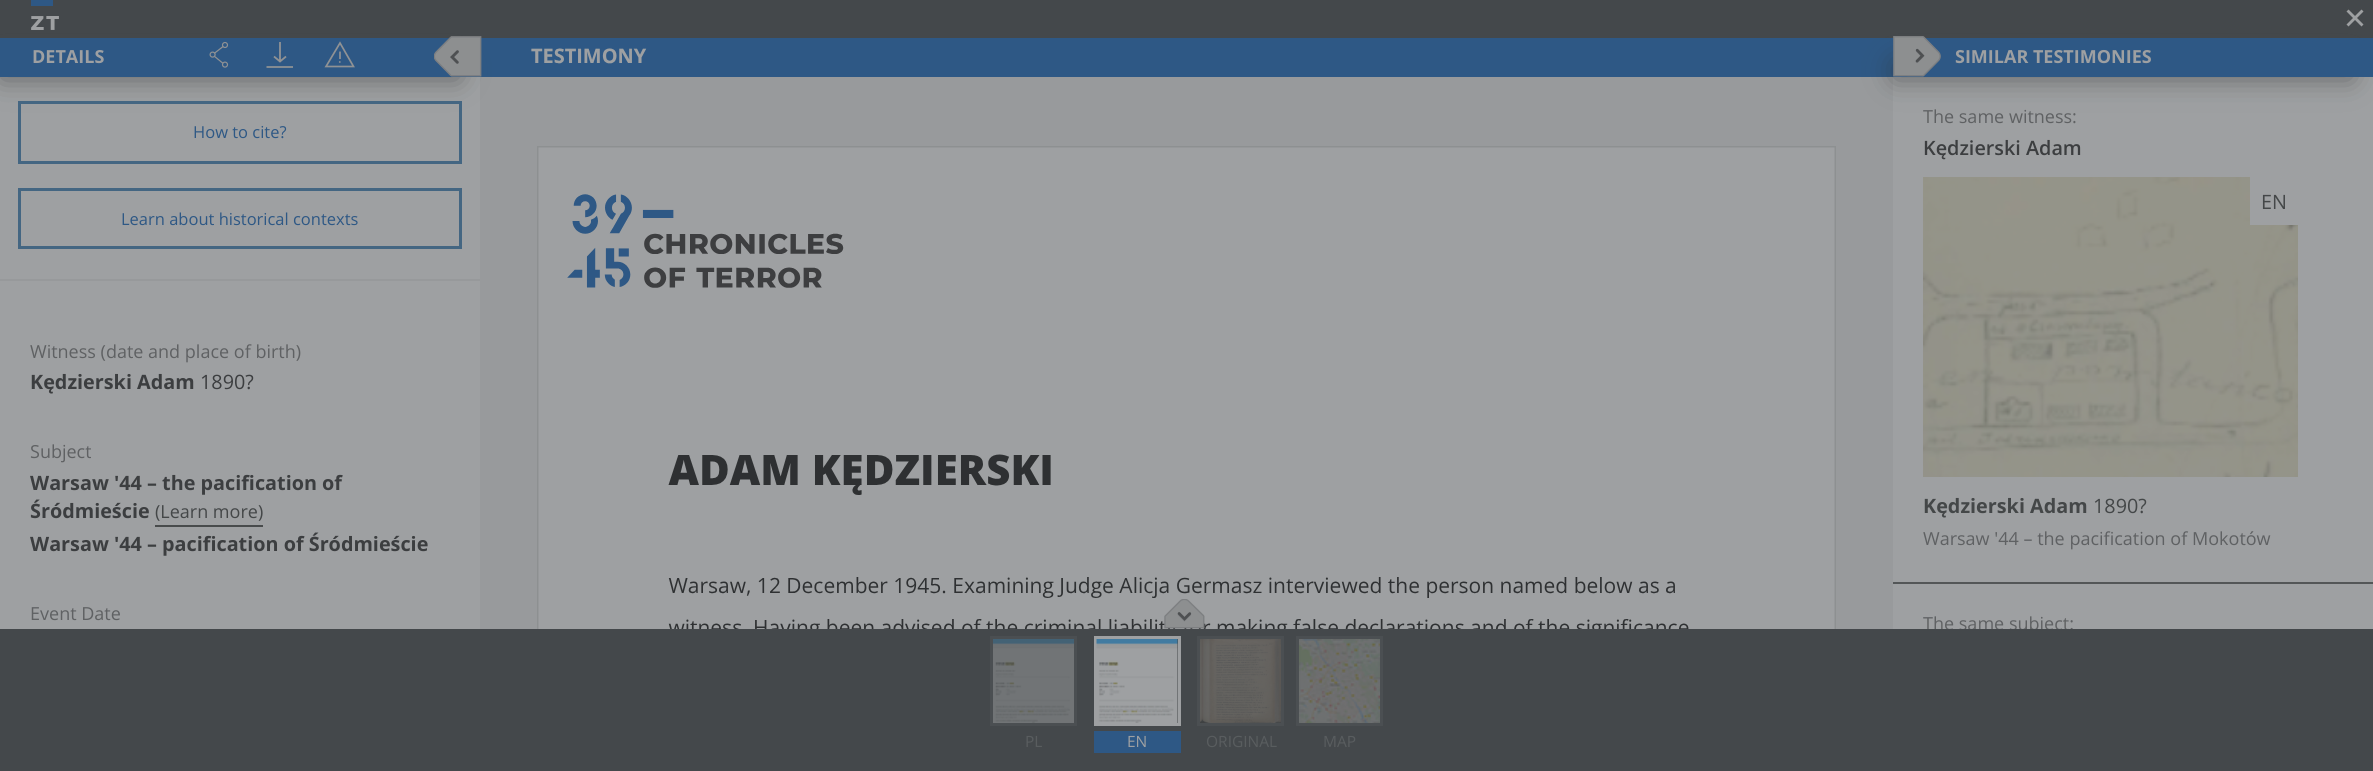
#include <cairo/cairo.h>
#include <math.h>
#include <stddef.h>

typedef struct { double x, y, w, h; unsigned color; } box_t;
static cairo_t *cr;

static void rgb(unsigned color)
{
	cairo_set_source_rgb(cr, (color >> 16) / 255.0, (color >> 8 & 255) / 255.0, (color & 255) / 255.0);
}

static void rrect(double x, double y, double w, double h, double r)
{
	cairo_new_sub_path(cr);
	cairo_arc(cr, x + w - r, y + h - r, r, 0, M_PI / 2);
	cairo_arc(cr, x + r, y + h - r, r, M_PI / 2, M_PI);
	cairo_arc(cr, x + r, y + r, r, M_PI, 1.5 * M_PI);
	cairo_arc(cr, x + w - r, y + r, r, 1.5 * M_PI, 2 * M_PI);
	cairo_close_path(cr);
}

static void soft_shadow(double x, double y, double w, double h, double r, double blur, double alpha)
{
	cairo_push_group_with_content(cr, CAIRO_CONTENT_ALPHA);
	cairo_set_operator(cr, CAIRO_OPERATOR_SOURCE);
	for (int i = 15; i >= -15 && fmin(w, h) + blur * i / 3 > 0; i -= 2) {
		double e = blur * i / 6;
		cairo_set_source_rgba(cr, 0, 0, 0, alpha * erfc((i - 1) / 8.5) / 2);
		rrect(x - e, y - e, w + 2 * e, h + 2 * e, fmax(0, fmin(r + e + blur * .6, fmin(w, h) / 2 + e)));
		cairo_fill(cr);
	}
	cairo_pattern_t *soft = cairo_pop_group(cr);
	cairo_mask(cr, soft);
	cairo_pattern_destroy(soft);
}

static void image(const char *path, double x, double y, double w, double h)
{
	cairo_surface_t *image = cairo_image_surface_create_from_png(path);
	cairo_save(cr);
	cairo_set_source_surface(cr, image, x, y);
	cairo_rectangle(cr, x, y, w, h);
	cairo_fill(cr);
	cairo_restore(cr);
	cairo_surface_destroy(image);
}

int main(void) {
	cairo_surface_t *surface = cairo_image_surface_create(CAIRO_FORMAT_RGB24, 2373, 771);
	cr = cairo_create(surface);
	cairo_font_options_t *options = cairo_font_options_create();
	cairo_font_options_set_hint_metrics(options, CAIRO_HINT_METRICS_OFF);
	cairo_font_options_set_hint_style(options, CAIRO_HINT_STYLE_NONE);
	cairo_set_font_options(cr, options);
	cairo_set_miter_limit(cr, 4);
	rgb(0x44484b);
	cairo_paint(cr);
	image("img/1.png", 31, 0, 28, 30);
	rgb(0x9ea0a2);
	cairo_new_path(cr);
	cairo_move_to(cr, 2346.5, 24.5);
	cairo_line_to(cr, 2361.5, 9.5);
	cairo_line_to(cr, 2363.5, 11.5);
	cairo_line_to(cr, 2348.5, 26.5);
	cairo_close_path(cr);
	cairo_fill(cr);
	cairo_new_path(cr);
	cairo_move_to(cr, 2348.5, 9.5);
	cairo_line_to(cr, 2363.5, 24.5);
	cairo_line_to(cr, 2361.5, 26.5);
	cairo_line_to(cr, 2346.5, 11.5);
	cairo_close_path(cr);
	cairo_fill(cr);
	cairo_rectangle(cr, 0, 77, 480, 552);
	cairo_fill(cr);
	image("img/4.png", 480, 38, 1413, 591);
	rgb(0x2e3032);
	soft_shadow(5, 66, 450, 9, 0, 15, 0.65);
	rgb(0x2e5885);
	cairo_rectangle(cr, 0, 38, 480, 39);
	cairo_fill(cr);
	image("img/2.png", 209, 41, 20, 27);
	cairo_new_path(cr);
	cairo_move_to(cr, 266.5, 67);
	cairo_line_to(cr, 293, 67);
	cairo_move_to(cr, 280, 42);
	cairo_line_to(cr, 280, 61.5);
	cairo_move_to(cr, 280, 61.5);
	cairo_line_to(cr, 274, 56.5);
	cairo_line_to(cr, 280, 61.5);
	cairo_line_to(cr, 286, 56.5);
	rgb(0x909294);
	cairo_set_line_width(cr, 1.8);
	cairo_stroke(cr);
	cairo_new_path(cr);
	cairo_move_to(cr, 340, 66.5);
	cairo_line_to(cr, 326, 66.5);
	cairo_line_to(cr, 340, 43);
	cairo_line_to(cr, 353.5, 66.5);
	cairo_close_path(cr);
	cairo_move_to(cr, 340, 51.5);
	cairo_line_to(cr, 340, 59);
	cairo_set_line_width(cr, 1.7);
	cairo_stroke(cr);
	cairo_arc(cr, 339.8, 62, 0.9, 0, 2 * M_PI);
	cairo_fill(cr);
	image("img/3.png", 434, 36, 48, 41);
	cairo_rectangle(cr, 19.5, 102.5, 441, 60);
	rgb(0x446682);
	cairo_set_line_width(cr, 3);
	cairo_stroke(cr);
	cairo_rectangle(cr, 19.5, 189.5, 441, 58);
	cairo_stroke(cr);
	{
		static const box_t items[] = {
			{0, 279, 480, 2, 0x97999b},
			{155, 525, 108, 2, 0x484b4c},
			{1893, 77, 480, 552, 0x9ea0a2},
		};
		for (size_t i = 0; i < sizeof items / sizeof *items; i++) {
			rgb(items[i].color);
			cairo_rectangle(cr, items[i].x, items[i].y, items[i].w, items[i].h);
			cairo_fill(cr);
		}
	}
	rgb(0x2e3032);
	soft_shadow(1898, 66, 450, 9, 0, 15, 0.65);
	rgb(0x2e5885);
	cairo_rectangle(cr, 1893, 38, 480, 39);
	cairo_fill(cr);
	image("img/5.png", 1893, 36, 48, 41);
	rgb(0x535657);
	cairo_rectangle(cr, 1893, 582, 480, 2);
	cairo_fill(cr);
	image("img/6.png", 1923, 177, 375, 300);
	rgb(0x9ea0a2);
	cairo_rectangle(cr, 2250, 177, 48, 48);
	cairo_fill(cr);
	image("img/7.png", 1164, 599, 41, 30);
	cairo_rectangle(cr, 991.5, 637.5, 84, 87);
	rgb(0x4b4f52);
	cairo_stroke(cr);
	image("img/8.png", 993, 639, 81, 84);
	cairo_rectangle(cr, 1095.5, 637.5, 84, 87);
	rgb(0x9ea0a2);
	cairo_stroke(cr);
	image("img/9.png", 1096, 639, 82, 84);
	rgb(0x2e5885);
	cairo_rectangle(cr, 1094, 731, 87, 22);
	cairo_fill(cr);
	cairo_rectangle(cr, 1198.5, 637.5, 84, 87);
	rgb(0x4b4f52);
	cairo_stroke(cr);
	image("img/10.png", 1200, 639, 81, 84);
	cairo_rectangle(cr, 1297.5, 637.5, 84, 87);
	cairo_stroke(cr);
	image("img/11.png", 1299, 639, 81, 84);
	cairo_select_font_face(cr, "Open Sans", CAIRO_FONT_SLANT_NORMAL, CAIRO_FONT_WEIGHT_BOLD);
	cairo_set_font_size(cr, 18);
	rgb(0x9ea0a2);
	cairo_move_to(cr, 32, 63);
	cairo_show_text(cr, "DETAILS");
	cairo_select_font_face(cr, "Open Sans", CAIRO_FONT_SLANT_NORMAL, CAIRO_FONT_WEIGHT_NORMAL);
	cairo_set_font_size(cr, 16.5);
	rgb(0x2e5885);
	cairo_move_to(cr, 193, 138);
	cairo_show_text(cr, "How to cite?");
	cairo_move_to(cr, 121, 225);
	cairo_show_text(cr, "Learn about historical contexts");
	cairo_set_font_size(cr, 18);
	rgb(0x5f6163);
	cairo_move_to(cr, 30, 358);
	cairo_show_text(cr, "Witness (date and place of birth)");
	cairo_select_font_face(cr, "Open Sans", CAIRO_FONT_SLANT_NORMAL, CAIRO_FONT_WEIGHT_BOLD);
	cairo_set_font_size(cr, 19.8);
	rgb(0x3c3e40);
	cairo_move_to(cr, 30, 389);
	cairo_show_text(cr, "Kędzierski Adam");
	cairo_select_font_face(cr, "Open Sans", CAIRO_FONT_SLANT_NORMAL, CAIRO_FONT_WEIGHT_NORMAL);
	cairo_move_to(cr, 200, 389);
	cairo_show_text(cr, "1890?");
	cairo_set_font_size(cr, 18);
	rgb(0x5f6163);
	cairo_move_to(cr, 30, 458);
	cairo_show_text(cr, "Subject");
	cairo_select_font_face(cr, "Open Sans", CAIRO_FONT_SLANT_NORMAL, CAIRO_FONT_WEIGHT_BOLD);
	cairo_set_font_size(cr, 19.8);
	rgb(0x3c3e40);
	cairo_move_to(cr, 30, 490);
	cairo_show_text(cr, "Warsaw '44 – the pacification of");
	cairo_move_to(cr, 30, 518);
	cairo_show_text(cr, "Śródmieście");
	cairo_select_font_face(cr, "Open Sans", CAIRO_FONT_SLANT_NORMAL, CAIRO_FONT_WEIGHT_NORMAL);
	cairo_set_font_size(cr, 18);
	rgb(0x444748);
	cairo_move_to(cr, 155, 518);
	cairo_show_text(cr, "(Learn more)");
	cairo_select_font_face(cr, "Open Sans", CAIRO_FONT_SLANT_NORMAL, CAIRO_FONT_WEIGHT_BOLD);
	cairo_set_font_size(cr, 19.8);
	rgb(0x3c3e40);
	cairo_move_to(cr, 30, 551);
	cairo_show_text(cr, "Warsaw '44 – pacification of Śródmieście");
	cairo_select_font_face(cr, "Open Sans", CAIRO_FONT_SLANT_NORMAL, CAIRO_FONT_WEIGHT_NORMAL);
	cairo_set_font_size(cr, 18);
	rgb(0x5f6163);
	cairo_move_to(cr, 30, 620);
	cairo_show_text(cr, "Event Date");
	cairo_select_font_face(cr, "Open Sans", CAIRO_FONT_SLANT_NORMAL, CAIRO_FONT_WEIGHT_BOLD);
	rgb(0x9ea0a2);
	cairo_move_to(cr, 1955, 63);
	cairo_show_text(cr, "SIMILAR TESTIMONIES");
	cairo_select_font_face(cr, "Open Sans", CAIRO_FONT_SLANT_NORMAL, CAIRO_FONT_WEIGHT_NORMAL);
	rgb(0x5f6163);
	cairo_move_to(cr, 1923, 123);
	cairo_show_text(cr, "The same witness:");
	cairo_select_font_face(cr, "Open Sans SemiBold", CAIRO_FONT_SLANT_NORMAL, CAIRO_FONT_WEIGHT_NORMAL);
	cairo_set_font_size(cr, 19.8);
	rgb(0x3c3e40);
	cairo_move_to(cr, 1923, 155);
	cairo_show_text(cr, "Kędzierski Adam");
	cairo_select_font_face(cr, "Open Sans", CAIRO_FONT_SLANT_NORMAL, CAIRO_FONT_WEIGHT_NORMAL);
	rgb(0x444748);
	cairo_move_to(cr, 2261, 209);
	cairo_show_text(cr, "EN");
	cairo_select_font_face(cr, "Open Sans", CAIRO_FONT_SLANT_NORMAL, CAIRO_FONT_WEIGHT_BOLD);
	cairo_move_to(cr, 1923, 513);
	cairo_show_text(cr, "Kędzierski Adam");
	cairo_select_font_face(cr, "Open Sans", CAIRO_FONT_SLANT_NORMAL, CAIRO_FONT_WEIGHT_NORMAL);
	cairo_move_to(cr, 2093, 513);
	cairo_show_text(cr, "1890?");
	cairo_set_font_size(cr, 18);
	rgb(0x5f6163);
	cairo_move_to(cr, 1923, 545);
	cairo_show_text(cr, "Warsaw '44 – the pacification of Mokotów");
	cairo_save(cr);
	cairo_rectangle(cr, 1893, 77, 480, 552);
	cairo_clip(cr);
	cairo_move_to(cr, 1923, 630);
	cairo_show_text(cr, "The same subject:");
	cairo_restore(cr);
	cairo_set_font_size(cr, 15.5);
	rgb(0x595d5f);
	cairo_move_to(cr, 1025, 747);
	cairo_show_text(cr, "PL");
	rgb(0x9ea0a2);
	cairo_move_to(cr, 1127, 747);
	cairo_show_text(cr, "EN");
	rgb(0x595d5f);
	cairo_move_to(cr, 1206, 747);
	cairo_show_text(cr, "ORIGINAL");
	cairo_move_to(cr, 1323, 747);
	cairo_show_text(cr, "MAP");
	cairo_surface_write_to_png(surface, "page.png");
	cairo_font_options_destroy(options);
	cairo_destroy(cr);
	cairo_surface_destroy(surface);
	return 0;
}
